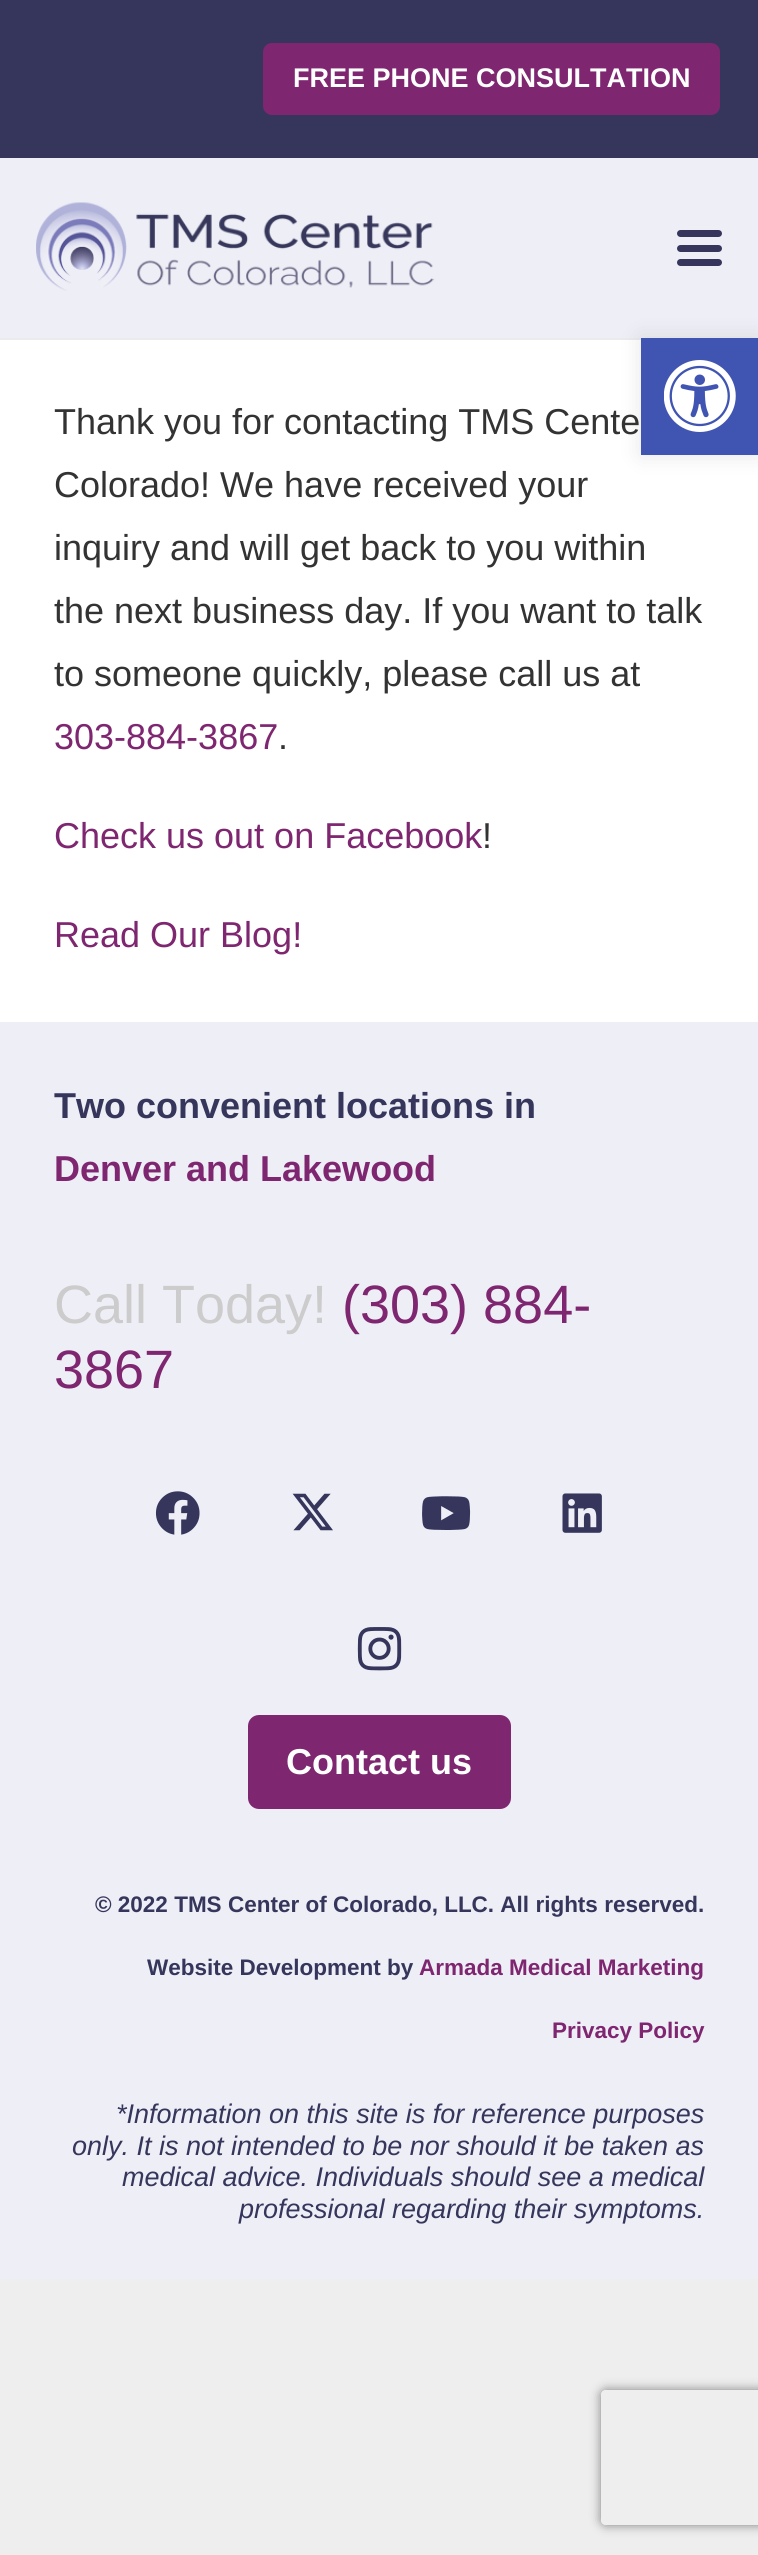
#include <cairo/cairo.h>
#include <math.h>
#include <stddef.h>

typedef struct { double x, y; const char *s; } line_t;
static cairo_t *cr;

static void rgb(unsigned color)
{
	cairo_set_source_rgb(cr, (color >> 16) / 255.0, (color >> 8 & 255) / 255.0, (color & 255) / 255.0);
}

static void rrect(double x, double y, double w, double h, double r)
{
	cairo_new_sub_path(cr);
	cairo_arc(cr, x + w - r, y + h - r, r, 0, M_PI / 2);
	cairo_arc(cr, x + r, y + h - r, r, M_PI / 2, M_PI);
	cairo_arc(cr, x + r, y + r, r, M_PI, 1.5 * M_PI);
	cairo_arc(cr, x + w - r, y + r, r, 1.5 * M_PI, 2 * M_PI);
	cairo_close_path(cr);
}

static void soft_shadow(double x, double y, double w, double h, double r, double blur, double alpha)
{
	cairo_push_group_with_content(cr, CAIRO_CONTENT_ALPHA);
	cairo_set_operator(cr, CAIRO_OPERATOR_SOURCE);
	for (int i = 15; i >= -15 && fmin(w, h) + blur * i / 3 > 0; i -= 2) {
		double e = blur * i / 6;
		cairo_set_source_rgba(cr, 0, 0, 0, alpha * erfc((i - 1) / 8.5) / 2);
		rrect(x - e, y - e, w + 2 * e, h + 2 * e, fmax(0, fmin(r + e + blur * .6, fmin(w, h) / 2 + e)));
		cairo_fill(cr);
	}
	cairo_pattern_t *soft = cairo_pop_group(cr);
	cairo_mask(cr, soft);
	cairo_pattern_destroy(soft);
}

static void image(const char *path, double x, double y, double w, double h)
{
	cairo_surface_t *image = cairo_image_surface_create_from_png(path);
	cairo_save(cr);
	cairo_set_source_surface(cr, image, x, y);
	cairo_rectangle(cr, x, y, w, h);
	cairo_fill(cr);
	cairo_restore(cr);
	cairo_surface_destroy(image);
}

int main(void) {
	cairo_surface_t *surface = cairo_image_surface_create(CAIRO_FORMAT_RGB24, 758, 2555);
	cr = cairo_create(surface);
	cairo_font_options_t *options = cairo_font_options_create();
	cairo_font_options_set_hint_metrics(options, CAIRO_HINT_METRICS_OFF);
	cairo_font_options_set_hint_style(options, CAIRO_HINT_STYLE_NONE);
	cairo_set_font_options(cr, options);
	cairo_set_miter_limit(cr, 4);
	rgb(0xeeeeee);
	cairo_paint(cr);
	rgb(0xffffff);
	cairo_rectangle(cr, 0, 340, 758, 682);
	cairo_fill(cr);
	rgb(0x36365c);
	cairo_rectangle(cr, 0, 0, 758, 158);
	cairo_fill(cr);
	rgb(0x7e2670);
	rrect(263, 43, 457, 72, 9);
	cairo_fill(cr);
	rgb(0xebebeb);
	cairo_rectangle(cr, 0, 338, 641, 2);
	cairo_fill(cr);
	rgb(0xeeeef6);
	cairo_rectangle(cr, 0, 158, 758, 180);
	cairo_fill(cr);
	image("img/1.png", 36, 202, 399, 89);
	rgb(0x36365c);
	rrect(677, 245, 45, 7, 3.5);
	cairo_fill(cr);
	rrect(677, 230, 45, 7, 3.5);
	cairo_fill(cr);
	rrect(677, 259, 45, 7, 3.5);
	cairo_fill(cr);
	rgb(0x000000);
	soft_shadow(641, 338, 117, 117, 0, 11, 0.1);
	rgb(0x4054b2);
	cairo_rectangle(cr, 641, 338, 117, 117);
	cairo_fill(cr);
	image("img/2.png", 664, 360, 72, 72);
	rgb(0xeeeef6);
	cairo_rectangle(cr, 0, 1022, 758, 1257);
	cairo_fill(cr);
	image("img/3.png", 155, 1491, 45, 44);
	image("img/4.png", 292, 1493, 41, 38);
	image("img/5.png", 422, 1496, 49, 34);
	image("img/6.png", 562, 1493, 40, 40);
	image("img/7.png", 357, 1627, 45, 44);
	rgb(0x7e2670);
	rrect(248, 1715, 263, 94, 11);
	cairo_fill(cr);
	cairo_save(cr);
	cairo_set_fill_rule(cr, CAIRO_FILL_RULE_EVEN_ODD);
	cairo_new_path(cr);
	cairo_move_to(cr, 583, 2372);
	cairo_line_to(cr, 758, 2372);
	cairo_line_to(cr, 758, 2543);
	cairo_line_to(cr, 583, 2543);
	cairo_close_path(cr);
	cairo_move_to(cr, 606, 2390);
	cairo_line_to(cr, 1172, 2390);
	cairo_curve_to(cr, 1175, 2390, 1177, 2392, 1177, 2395);
	cairo_line_to(cr, 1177, 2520);
	cairo_curve_to(cr, 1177, 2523, 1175, 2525, 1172, 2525);
	cairo_line_to(cr, 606, 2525);
	cairo_curve_to(cr, 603, 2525, 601, 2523, 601, 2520);
	cairo_line_to(cr, 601, 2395);
	cairo_curve_to(cr, 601, 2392, 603, 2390, 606, 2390);
	cairo_close_path(cr);
	cairo_clip(cr);
	rgb(0x808080);
	soft_shadow(601, 2390, 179, 135, 5, 5.5, 1);
	cairo_restore(cr);
	cairo_select_font_face(cr, "Liberation Sans", CAIRO_FONT_SLANT_NORMAL, CAIRO_FONT_WEIGHT_BOLD);
	cairo_set_font_size(cr, 27);
	rgb(0xffffff);
	cairo_move_to(cr, 293, 87);
	cairo_show_text(cr, "FREE PHONE CONSULTATION");
	cairo_select_font_face(cr, "Liberation Sans", CAIRO_FONT_SLANT_NORMAL, CAIRO_FONT_WEIGHT_NORMAL);
	cairo_set_font_size(cr, 36);
	rgb(0x333333);
	{
		static const line_t items[] = {
			{54, 434, "Thank you for contacting TMS Cente"},
			{54, 497, "Colorado! We have received your"},
			{54, 560, "inquiry and will get back to you within"},
			{54, 623, "the next business day. If you want to talk"},
			{54, 686, "to someone quickly, please call us at"},
		};
		for (size_t i = 0; i < sizeof items / sizeof *items; i++) {
			cairo_move_to(cr, items[i].x, items[i].y);
			cairo_show_text(cr, items[i].s);
		}
	}
	rgb(0x7e2670);
	cairo_move_to(cr, 54, 749);
	cairo_show_text(cr, "303-884-3867");
	rgb(0x333333);
	cairo_move_to(cr, 278, 749);
	cairo_show_text(cr, ".");
	rgb(0x7e2670);
	cairo_move_to(cr, 54, 848);
	cairo_show_text(cr, "Check us out on Facebook");
	rgb(0x333333);
	cairo_move_to(cr, 482, 848);
	cairo_show_text(cr, "!");
	rgb(0x7e2670);
	cairo_move_to(cr, 54, 947);
	cairo_show_text(cr, "Read Our Blog!");
	cairo_select_font_face(cr, "Liberation Sans", CAIRO_FONT_SLANT_NORMAL, CAIRO_FONT_WEIGHT_BOLD);
	rgb(0x36365c);
	cairo_move_to(cr, 54, 1118);
	cairo_show_text(cr, "Two convenient locations in");
	rgb(0x7e2670);
	cairo_move_to(cr, 54, 1181);
	cairo_show_text(cr, "Denver and Lakewood");
	cairo_select_font_face(cr, "Liberation Sans", CAIRO_FONT_SLANT_NORMAL, CAIRO_FONT_WEIGHT_NORMAL);
	cairo_set_font_size(cr, 54);
	rgb(0xcccccc);
	cairo_move_to(cr, 54, 1323);
	cairo_show_text(cr, "Call Today!");
	rgb(0x7e2670);
	cairo_move_to(cr, 342, 1323);
	cairo_show_text(cr, "(303) 884-");
	cairo_move_to(cr, 54, 1388);
	cairo_show_text(cr, "3867");
	cairo_select_font_face(cr, "Liberation Sans", CAIRO_FONT_SLANT_NORMAL, CAIRO_FONT_WEIGHT_BOLD);
	cairo_set_font_size(cr, 36);
	rgb(0xffffff);
	cairo_move_to(cr, 286, 1774);
	cairo_show_text(cr, "Contact us");
	cairo_set_font_size(cr, 22.5);
	rgb(0x36365c);
	cairo_move_to(cr, 95, 1912);
	cairo_show_text(cr, "© 2022 TMS Center of Colorado, LLC. All rights reserved.");
	cairo_move_to(cr, 147, 1975);
	cairo_show_text(cr, "Website Development by");
	rgb(0x7e2670);
	cairo_move_to(cr, 419, 1975);
	cairo_show_text(cr, "Armada Medical Marketing");
	cairo_move_to(cr, 552, 2038);
	cairo_show_text(cr, "Privacy Policy");
	cairo_select_font_face(cr, "Liberation Sans", CAIRO_FONT_SLANT_ITALIC, CAIRO_FONT_WEIGHT_NORMAL);
	cairo_set_font_size(cr, 27);
	rgb(0x36365c);
	{
		static const line_t items[] = {
			{116, 2123, "*Information on this site is for reference purposes"},
			{72, 2155, "only. It is not intended to be nor should it be taken as"},
			{122, 2186, "medical advice. Individuals should see a medical"},
			{239, 2218, "professional regarding their symptoms."},
		};
		for (size_t i = 0; i < sizeof items / sizeof *items; i++) {
			cairo_move_to(cr, items[i].x, items[i].y);
			cairo_show_text(cr, items[i].s);
		}
	}
	cairo_surface_write_to_png(surface, "page.png");
	cairo_font_options_destroy(options);
	cairo_destroy(cr);
	cairo_surface_destroy(surface);
	return 0;
}
